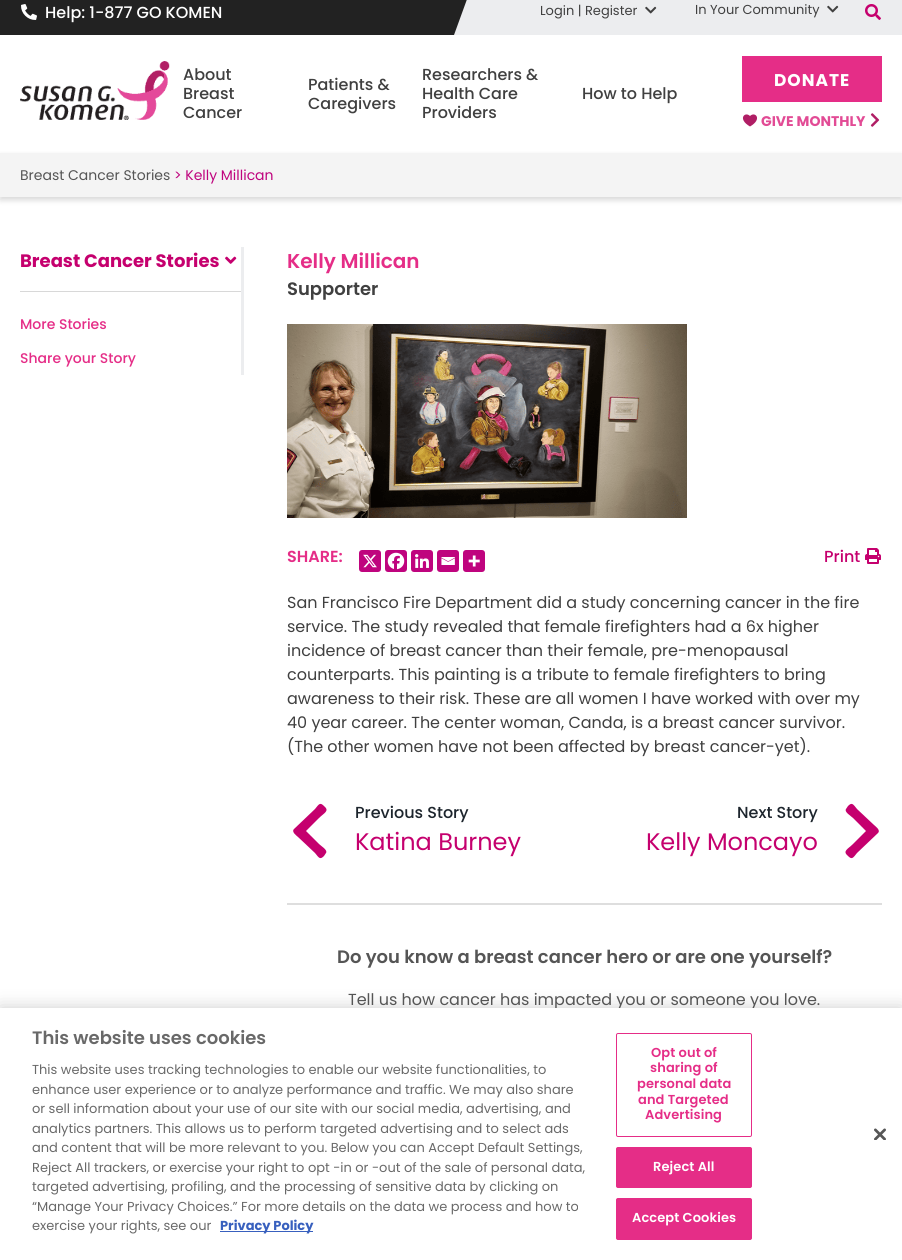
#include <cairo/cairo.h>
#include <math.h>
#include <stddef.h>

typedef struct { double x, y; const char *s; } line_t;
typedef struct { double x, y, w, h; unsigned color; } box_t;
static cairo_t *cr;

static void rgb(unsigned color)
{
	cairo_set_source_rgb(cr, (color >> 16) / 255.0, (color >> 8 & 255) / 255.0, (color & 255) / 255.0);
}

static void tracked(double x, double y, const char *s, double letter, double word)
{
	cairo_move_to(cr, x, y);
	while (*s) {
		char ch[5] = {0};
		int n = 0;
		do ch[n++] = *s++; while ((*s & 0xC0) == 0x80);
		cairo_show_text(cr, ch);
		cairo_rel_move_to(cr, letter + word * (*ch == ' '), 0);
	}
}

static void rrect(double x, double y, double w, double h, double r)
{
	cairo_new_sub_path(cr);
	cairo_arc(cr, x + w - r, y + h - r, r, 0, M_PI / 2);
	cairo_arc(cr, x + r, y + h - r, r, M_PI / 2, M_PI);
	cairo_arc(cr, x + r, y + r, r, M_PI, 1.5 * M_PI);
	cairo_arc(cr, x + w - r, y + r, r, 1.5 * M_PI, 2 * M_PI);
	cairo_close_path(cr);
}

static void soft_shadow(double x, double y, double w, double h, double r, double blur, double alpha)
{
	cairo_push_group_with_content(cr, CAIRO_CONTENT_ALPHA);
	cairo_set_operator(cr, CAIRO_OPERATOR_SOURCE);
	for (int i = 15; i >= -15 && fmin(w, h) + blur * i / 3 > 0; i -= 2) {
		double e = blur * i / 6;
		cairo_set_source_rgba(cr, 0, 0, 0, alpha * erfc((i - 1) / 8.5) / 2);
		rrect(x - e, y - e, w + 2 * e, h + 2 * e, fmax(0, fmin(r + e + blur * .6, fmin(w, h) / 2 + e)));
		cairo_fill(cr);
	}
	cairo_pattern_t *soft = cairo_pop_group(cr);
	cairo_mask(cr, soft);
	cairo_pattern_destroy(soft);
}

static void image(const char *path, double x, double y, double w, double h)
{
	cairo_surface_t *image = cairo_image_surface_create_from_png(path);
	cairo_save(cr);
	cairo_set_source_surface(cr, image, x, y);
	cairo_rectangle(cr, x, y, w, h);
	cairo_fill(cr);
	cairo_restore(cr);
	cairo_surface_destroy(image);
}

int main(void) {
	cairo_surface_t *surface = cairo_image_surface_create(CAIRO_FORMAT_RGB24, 902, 1260);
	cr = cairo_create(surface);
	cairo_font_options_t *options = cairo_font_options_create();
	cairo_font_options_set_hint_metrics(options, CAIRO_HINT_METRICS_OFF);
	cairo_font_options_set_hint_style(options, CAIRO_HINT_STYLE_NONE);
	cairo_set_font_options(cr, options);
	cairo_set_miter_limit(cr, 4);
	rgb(0xffffff);
	cairo_paint(cr);
	rgb(0x222222);
	cairo_rectangle(cr, 0, 0, 411, 35);
	cairo_fill(cr);
	image("img/1.png", 21, 4, 16, 16);
	rgb(0xecedef);
	cairo_rectangle(cr, 454, 0, 448, 35);
	cairo_fill(cr);
	rgb(0x222222);
	cairo_new_path(cr);
	cairo_move_to(cr, 414, -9);
	cairo_line_to(cr, 470, -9);
	cairo_line_to(cr, 454, 35);
	cairo_line_to(cr, 398, 35);
	cairo_close_path(cr);
	cairo_fill(cr);
	image("img/2.png", 645, 6, 12, 8);
	image("img/2.png", 827, 5, 12, 8);
	image("img/3.png", 865, 4, 16, 16);
	image("img/4.png", 20, 61, 150, 59);
	rgb(0xe52d87);
	cairo_rectangle(cr, 742, 56, 140, 46);
	cairo_fill(cr);
	rgb(0xb01e65);
	cairo_new_path(cr);
	cairo_move_to(cr, 750, 126.5);
	cairo_curve_to(cr, 763, 119, 755, 111, 750, 116);
	cairo_curve_to(cr, 745, 111, 737, 119, 750, 126.5);
	cairo_close_path(cr);
	cairo_fill(cr);
	image("img/5.png", 870, 113, 10, 14);
	rgb(0x000000);
	soft_shadow(0, 156, 902, 44, 0, 3, 0.16);
	{
		static const box_t items[] = {
			{0, 153, 902, 44, 0xf4f4f4},
			{241, 247, 3, 128, 0xecedef},
			{20, 291, 221, 1, 0xd8d8d8},
		};
		for (size_t i = 0; i < sizeof items / sizeof *items; i++) {
			rgb(items[i].color);
			cairo_rectangle(cr, items[i].x, items[i].y, items[i].w, items[i].h);
			cairo_fill(cr);
		}
	}
	image("img/6.png", 225, 256, 12, 8);
	image("img/7.png", 287, 324, 400, 194);
	rgb(0xbf047e);
	rrect(359, 550, 22, 22, 3);
	cairo_fill(cr);
	image("img/8.png", 363, 554, 14, 14);
	rrect(385, 550, 22, 22, 3);
	cairo_fill(cr);
	image("img/9.png", 387, 552, 18, 18);
	rrect(411, 550, 22, 22, 3);
	cairo_fill(cr);
	image("img/10.png", 415, 554, 14, 14);
	rrect(437, 550, 22, 22, 3);
	cairo_fill(cr);
	image("img/11.png", 441, 557, 14, 8);
	rrect(463, 550, 22, 22, 3);
	cairo_fill(cr);
	image("img/12.png", 468, 555, 12, 12);
	image("img/13.png", 865, 548, 16, 16);
	rgb(0xdedede);
	cairo_rectangle(cr, 287, 903, 595, 2);
	cairo_fill(cr);
	rgb(0xc5006e);
	cairo_new_path(cr);
	cairo_move_to(cr, 294, 829);
	cairo_line_to(cr, 315, 809);
	cairo_curve_to(cr, 319, 804, 320, 802, 324, 806);
	cairo_curve_to(cr, 330, 811, 324, 813, 319, 818);
	cairo_line_to(cr, 306, 831);
	cairo_line_to(cr, 319, 844);
	cairo_curve_to(cr, 321, 846, 328, 850, 326, 853);
	cairo_line_to(cr, 324, 856);
	cairo_curve_to(cr, 320, 860, 319, 858, 315, 853);
	cairo_line_to(cr, 298, 837);
	cairo_curve_to(cr, 297, 836, 291, 832, 294, 829);
	cairo_close_path(cr);
	cairo_fill(cr);
	cairo_new_path(cr);
	cairo_move_to(cr, 878, 833);
	cairo_line_to(cr, 857, 853);
	cairo_curve_to(cr, 853, 858, 852, 860, 848, 856);
	cairo_curve_to(cr, 842, 851, 848, 849, 853, 844);
	cairo_line_to(cr, 866, 831);
	cairo_line_to(cr, 853, 818);
	cairo_curve_to(cr, 851, 816, 844, 812, 846, 809);
	cairo_line_to(cr, 848, 806);
	cairo_curve_to(cr, 852, 802, 853, 804, 857, 809);
	cairo_line_to(cr, 874, 825);
	cairo_curve_to(cr, 875, 826, 881, 830, 878, 833);
	cairo_close_path(cr);
	cairo_fill(cr);
	rgb(0x000000);
	soft_shadow(0, 1008, 902, 252, 0, 9, 0.2);
	cairo_select_font_face(cr, "Poppins Medium", CAIRO_FONT_SLANT_NORMAL, CAIRO_FONT_WEIGHT_NORMAL);
	cairo_set_font_size(cr, 16);
	rgb(0xffffff);
	cairo_move_to(cr, 45, 18);
	cairo_show_text(cr, "Help: 1-877 GO KOMEN");
	cairo_select_font_face(cr, "Poppins", CAIRO_FONT_SLANT_NORMAL, CAIRO_FONT_WEIGHT_NORMAL);
	cairo_set_font_size(cr, 13);
	rgb(0x404040);
	cairo_move_to(cr, 540, 15);
	cairo_show_text(cr, "Login | Register");
	cairo_move_to(cr, 695, 14);
	cairo_show_text(cr, "In Your Community");
	cairo_select_font_face(cr, "Poppins Medium", CAIRO_FONT_SLANT_NORMAL, CAIRO_FONT_WEIGHT_NORMAL);
	cairo_set_font_size(cr, 16);
	{
		static const line_t items[] = {
			{183, 80, "About"},
			{183, 99, "Breast"},
			{183, 118, "Cancer"},
			{308, 90, "Patients &"},
			{308, 109, "Caregivers"},
			{422, 80, "Researchers &"},
			{422, 99, "Health Care"},
			{422, 118, "Providers"},
			{582, 99, "How to Help"},
		};
		for (size_t i = 0; i < sizeof items / sizeof *items; i++) {
			cairo_move_to(cr, items[i].x, items[i].y);
			cairo_show_text(cr, items[i].s);
		}
	}
	cairo_select_font_face(cr, "Poppins", CAIRO_FONT_SLANT_NORMAL, CAIRO_FONT_WEIGHT_BOLD);
	cairo_set_font_size(cr, 17);
	rgb(0xffffff);
	tracked(774, 86, "DONATE", 1, 0);
	cairo_set_font_size(cr, 14);
	rgb(0xe24b95);
	cairo_move_to(cr, 761, 126);
	cairo_show_text(cr, "GIVE MONTHLY");
	cairo_select_font_face(cr, "Poppins", CAIRO_FONT_SLANT_NORMAL, CAIRO_FONT_WEIGHT_NORMAL);
	rgb(0x555555);
	cairo_move_to(cr, 20, 180);
	cairo_show_text(cr, "Breast Cancer Stories");
	rgb(0xbf047e);
	cairo_move_to(cr, 174, 180);
	cairo_show_text(cr, "> Kelly Millican");
	cairo_select_font_face(cr, "Poppins", CAIRO_FONT_SLANT_NORMAL, CAIRO_FONT_WEIGHT_BOLD);
	cairo_set_font_size(cr, 18);
	rgb(0xc5006e);
	cairo_move_to(cr, 20, 267);
	cairo_show_text(cr, "Breast Cancer Stories");
	cairo_select_font_face(cr, "Poppins Medium", CAIRO_FONT_SLANT_NORMAL, CAIRO_FONT_WEIGHT_NORMAL);
	cairo_set_font_size(cr, 14);
	rgb(0xe52d87);
	cairo_move_to(cr, 20, 329);
	cairo_show_text(cr, "More Stories");
	cairo_move_to(cr, 20, 363);
	cairo_show_text(cr, "Share your Story");
	cairo_select_font_face(cr, "Poppins SemiBold", CAIRO_FONT_SLANT_NORMAL, CAIRO_FONT_WEIGHT_NORMAL);
	cairo_set_font_size(cr, 20);
	cairo_move_to(cr, 287, 268);
	cairo_show_text(cr, "Kelly Millican");
	cairo_set_font_size(cr, 18);
	rgb(0x404040);
	cairo_move_to(cr, 287, 295);
	cairo_show_text(cr, "Supporter");
	cairo_set_font_size(cr, 16);
	rgb(0xe52d87);
	cairo_move_to(cr, 287, 562);
	cairo_show_text(cr, "SHARE:");
	cairo_select_font_face(cr, "Poppins Medium", CAIRO_FONT_SLANT_NORMAL, CAIRO_FONT_WEIGHT_NORMAL);
	rgb(0xc5006e);
	cairo_move_to(cr, 824, 562);
	cairo_show_text(cr, "Print");
	cairo_select_font_face(cr, "Poppins", CAIRO_FONT_SLANT_NORMAL, CAIRO_FONT_WEIGHT_NORMAL);
	rgb(0x404040);
	{
		static const line_t items[] = {
			{287, 608, "San Francisco Fire Department did a study concerning cancer in the fire"},
			{287, 632, "service. The study revealed that female firefighters had a 6x higher"},
			{287, 656, "incidence of breast cancer than their female, pre-menopausal"},
			{287, 680, "counterparts. This painting is a tribute to female firefighters to bring"},
			{287, 704, "awareness to their risk. These are all women I have worked with over my"},
			{287, 728, "40 year career. The center woman, Canda, is a breast cancer survivor."},
			{287, 752, "(The other women have not been affected by breast cancer-yet)."},
		};
		for (size_t i = 0; i < sizeof items / sizeof *items; i++) {
			cairo_move_to(cr, items[i].x, items[i].y);
			cairo_show_text(cr, items[i].s);
		}
	}
	cairo_select_font_face(cr, "Poppins Medium", CAIRO_FONT_SLANT_NORMAL, CAIRO_FONT_WEIGHT_NORMAL);
	rgb(0x1d252d);
	cairo_move_to(cr, 355, 818);
	cairo_show_text(cr, "Previous Story");
	cairo_select_font_face(cr, "Poppins", CAIRO_FONT_SLANT_NORMAL, CAIRO_FONT_WEIGHT_NORMAL);
	cairo_set_font_size(cr, 24);
	rgb(0xc5006e);
	cairo_move_to(cr, 355, 850);
	cairo_show_text(cr, "Katina Burney");
	cairo_select_font_face(cr, "Poppins Medium", CAIRO_FONT_SLANT_NORMAL, CAIRO_FONT_WEIGHT_NORMAL);
	cairo_set_font_size(cr, 16);
	rgb(0x1d252d);
	cairo_move_to(cr, 737, 818);
	cairo_show_text(cr, "Next Story");
	cairo_select_font_face(cr, "Poppins", CAIRO_FONT_SLANT_NORMAL, CAIRO_FONT_WEIGHT_NORMAL);
	cairo_set_font_size(cr, 24);
	rgb(0xc5006e);
	cairo_move_to(cr, 646, 850);
	cairo_show_text(cr, "Kelly Moncayo");
	cairo_select_font_face(cr, "Poppins SemiBold", CAIRO_FONT_SLANT_NORMAL, CAIRO_FONT_WEIGHT_NORMAL);
	cairo_set_font_size(cr, 18);
	rgb(0x555555);
	cairo_move_to(cr, 337, 963);
	cairo_show_text(cr, "Do you know a breast cancer hero or are one yourself?");
	cairo_select_font_face(cr, "Poppins", CAIRO_FONT_SLANT_NORMAL, CAIRO_FONT_WEIGHT_NORMAL);
	cairo_set_font_size(cr, 16);
	cairo_move_to(cr, 348, 1005);
	cairo_show_text(cr, "Tell us how cancer has impacted you or someone you love.");
	rgb(0xffffff);
	cairo_rectangle(cr, 0, 1008, 902, 252);
	cairo_fill(cr);
	cairo_select_font_face(cr, "Poppins SemiBold", CAIRO_FONT_SLANT_NORMAL, CAIRO_FONT_WEIGHT_NORMAL);
	cairo_set_font_size(cr, 18);
	rgb(0x696969);
	cairo_move_to(cr, 32, 1044);
	cairo_show_text(cr, "This website uses cookies");
	cairo_select_font_face(cr, "Poppins", CAIRO_FONT_SLANT_NORMAL, CAIRO_FONT_WEIGHT_NORMAL);
	cairo_set_font_size(cr, 13);
	{
		static const line_t items[] = {
			{32, 1074, "This website uses tracking technologies to enable our website functionalities, to"},
			{32, 1094, "enhance user experience or to analyze performance and traffic. We may also share"},
			{32, 1113, "or sell information about your use of our site with our social media, advertising, and"},
			{32, 1133, "analytics partners. This allows us to perform targeted advertising and to select ads"},
			{32, 1152, "and content that will be more relevant to you. Below you can Accept Default Settings,"},
			{32, 1172, "Reject All trackers, or exercise your right to opt -in or -out of the sale of personal data,"},
			{32, 1191, "targeted advertising, profiling, and the processing of sensitive data by clicking on"},
			{32, 1211, "“Manage Your Privacy Choices.” For more details on the data we process and how to"},
			{32, 1230, "exercise your rights, see our"},
		};
		for (size_t i = 0; i < sizeof items / sizeof *items; i++) {
			cairo_move_to(cr, items[i].x, items[i].y);
			cairo_show_text(cr, items[i].s);
		}
	}
	rgb(0x3860be);
	cairo_rectangle(cr, 220, 1231, 93, 1);
	cairo_fill(cr);
	cairo_select_font_face(cr, "Poppins", CAIRO_FONT_SLANT_NORMAL, CAIRO_FONT_WEIGHT_BOLD);
	cairo_move_to(cr, 220, 1230);
	cairo_show_text(cr, "Privacy Policy");
	rrect(616.5, 1033.5, 135, 103, 1.5);
	rgb(0xe52d87);
	cairo_set_line_width(cr, 1);
	cairo_stroke(cr);
	cairo_select_font_face(cr, "Poppins SemiBold", CAIRO_FONT_SLANT_NORMAL, CAIRO_FONT_WEIGHT_NORMAL);
	{
		static const line_t items[] = {
			{651, 1057, "Opt out of"},
			{650, 1072, "sharing of"},
			{637, 1088, "personal data"},
			{638, 1104, "and Targeted"},
			{645, 1119, "Advertising"},
		};
		for (size_t i = 0; i < sizeof items / sizeof *items; i++) {
			tracked(items[i].x, items[i].y, items[i].s, 0.1, 0);
		}
	}
	rrect(616.5, 1147.5, 135, 40, 1.5);
	cairo_fill_preserve(cr);
	cairo_stroke(cr);
	rgb(0xffffff);
	tracked(653, 1171, "Reject All", 0.1, 0);
	rgb(0xe52d87);
	rrect(616.5, 1198.5, 135, 41, 1.5);
	cairo_fill_preserve(cr);
	cairo_stroke(cr);
	rgb(0xffffff);
	tracked(632, 1222, "Accept Cookies", 0.1, 0);
	image("img/14.png", 874, 1128, 12, 12);
	cairo_surface_write_to_png(surface, "page.png");
	cairo_font_options_destroy(options);
	cairo_destroy(cr);
	cairo_surface_destroy(surface);
	return 0;
}
